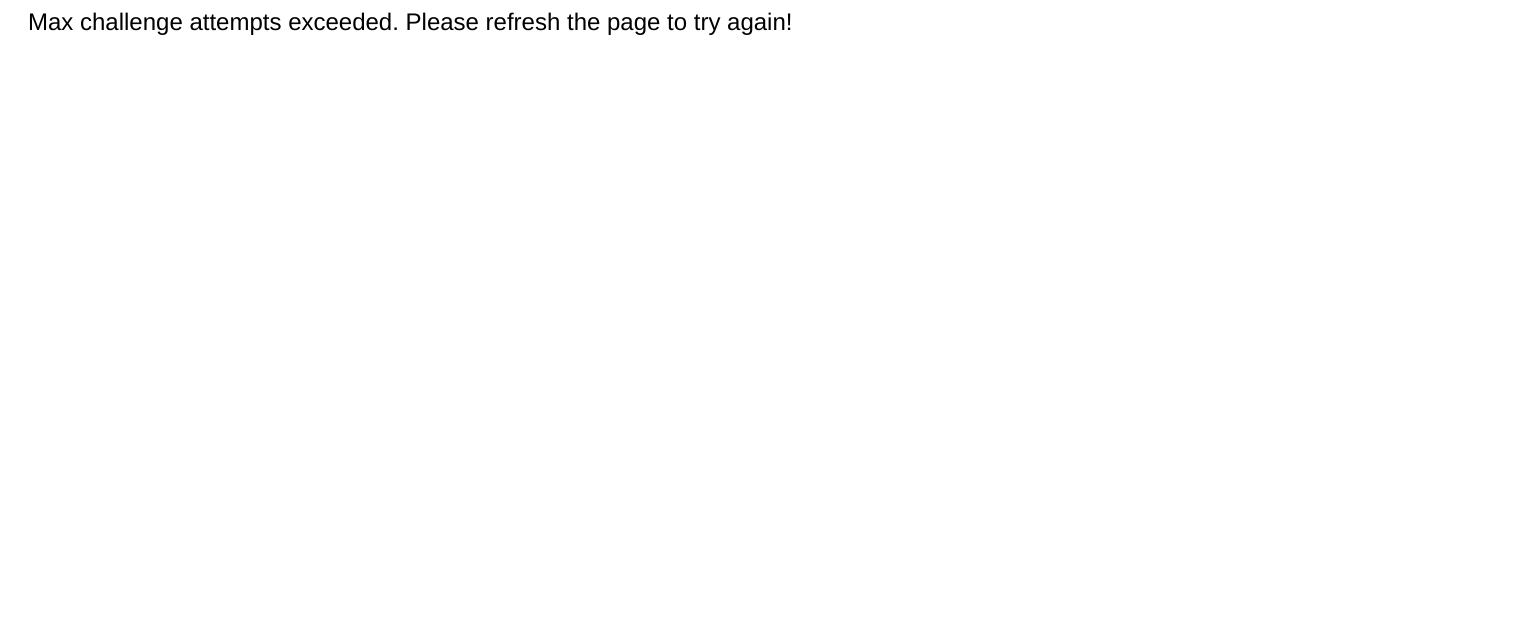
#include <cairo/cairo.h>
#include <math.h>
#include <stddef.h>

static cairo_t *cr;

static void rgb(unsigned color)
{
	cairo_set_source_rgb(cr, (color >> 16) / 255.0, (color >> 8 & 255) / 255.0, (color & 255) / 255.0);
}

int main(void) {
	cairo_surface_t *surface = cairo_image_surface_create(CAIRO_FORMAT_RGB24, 1530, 621);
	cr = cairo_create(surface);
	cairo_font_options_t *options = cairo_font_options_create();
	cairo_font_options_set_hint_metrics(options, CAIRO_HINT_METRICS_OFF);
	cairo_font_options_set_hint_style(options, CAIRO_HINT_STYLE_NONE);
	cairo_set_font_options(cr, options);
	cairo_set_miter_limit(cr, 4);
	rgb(0xffffff);
	cairo_paint(cr);
	cairo_select_font_face(cr, "Liberation Sans", CAIRO_FONT_SLANT_NORMAL, CAIRO_FONT_WEIGHT_NORMAL);
	cairo_set_font_size(cr, 24);
	rgb(0x000000);
	cairo_move_to(cr, 28, 30);
	cairo_show_text(cr, "Max challenge attempts exceeded. Please refresh the page to try again!");
	cairo_surface_write_to_png(surface, "page.png");
	cairo_font_options_destroy(options);
	cairo_destroy(cr);
	cairo_surface_destroy(surface);
	return 0;
}
